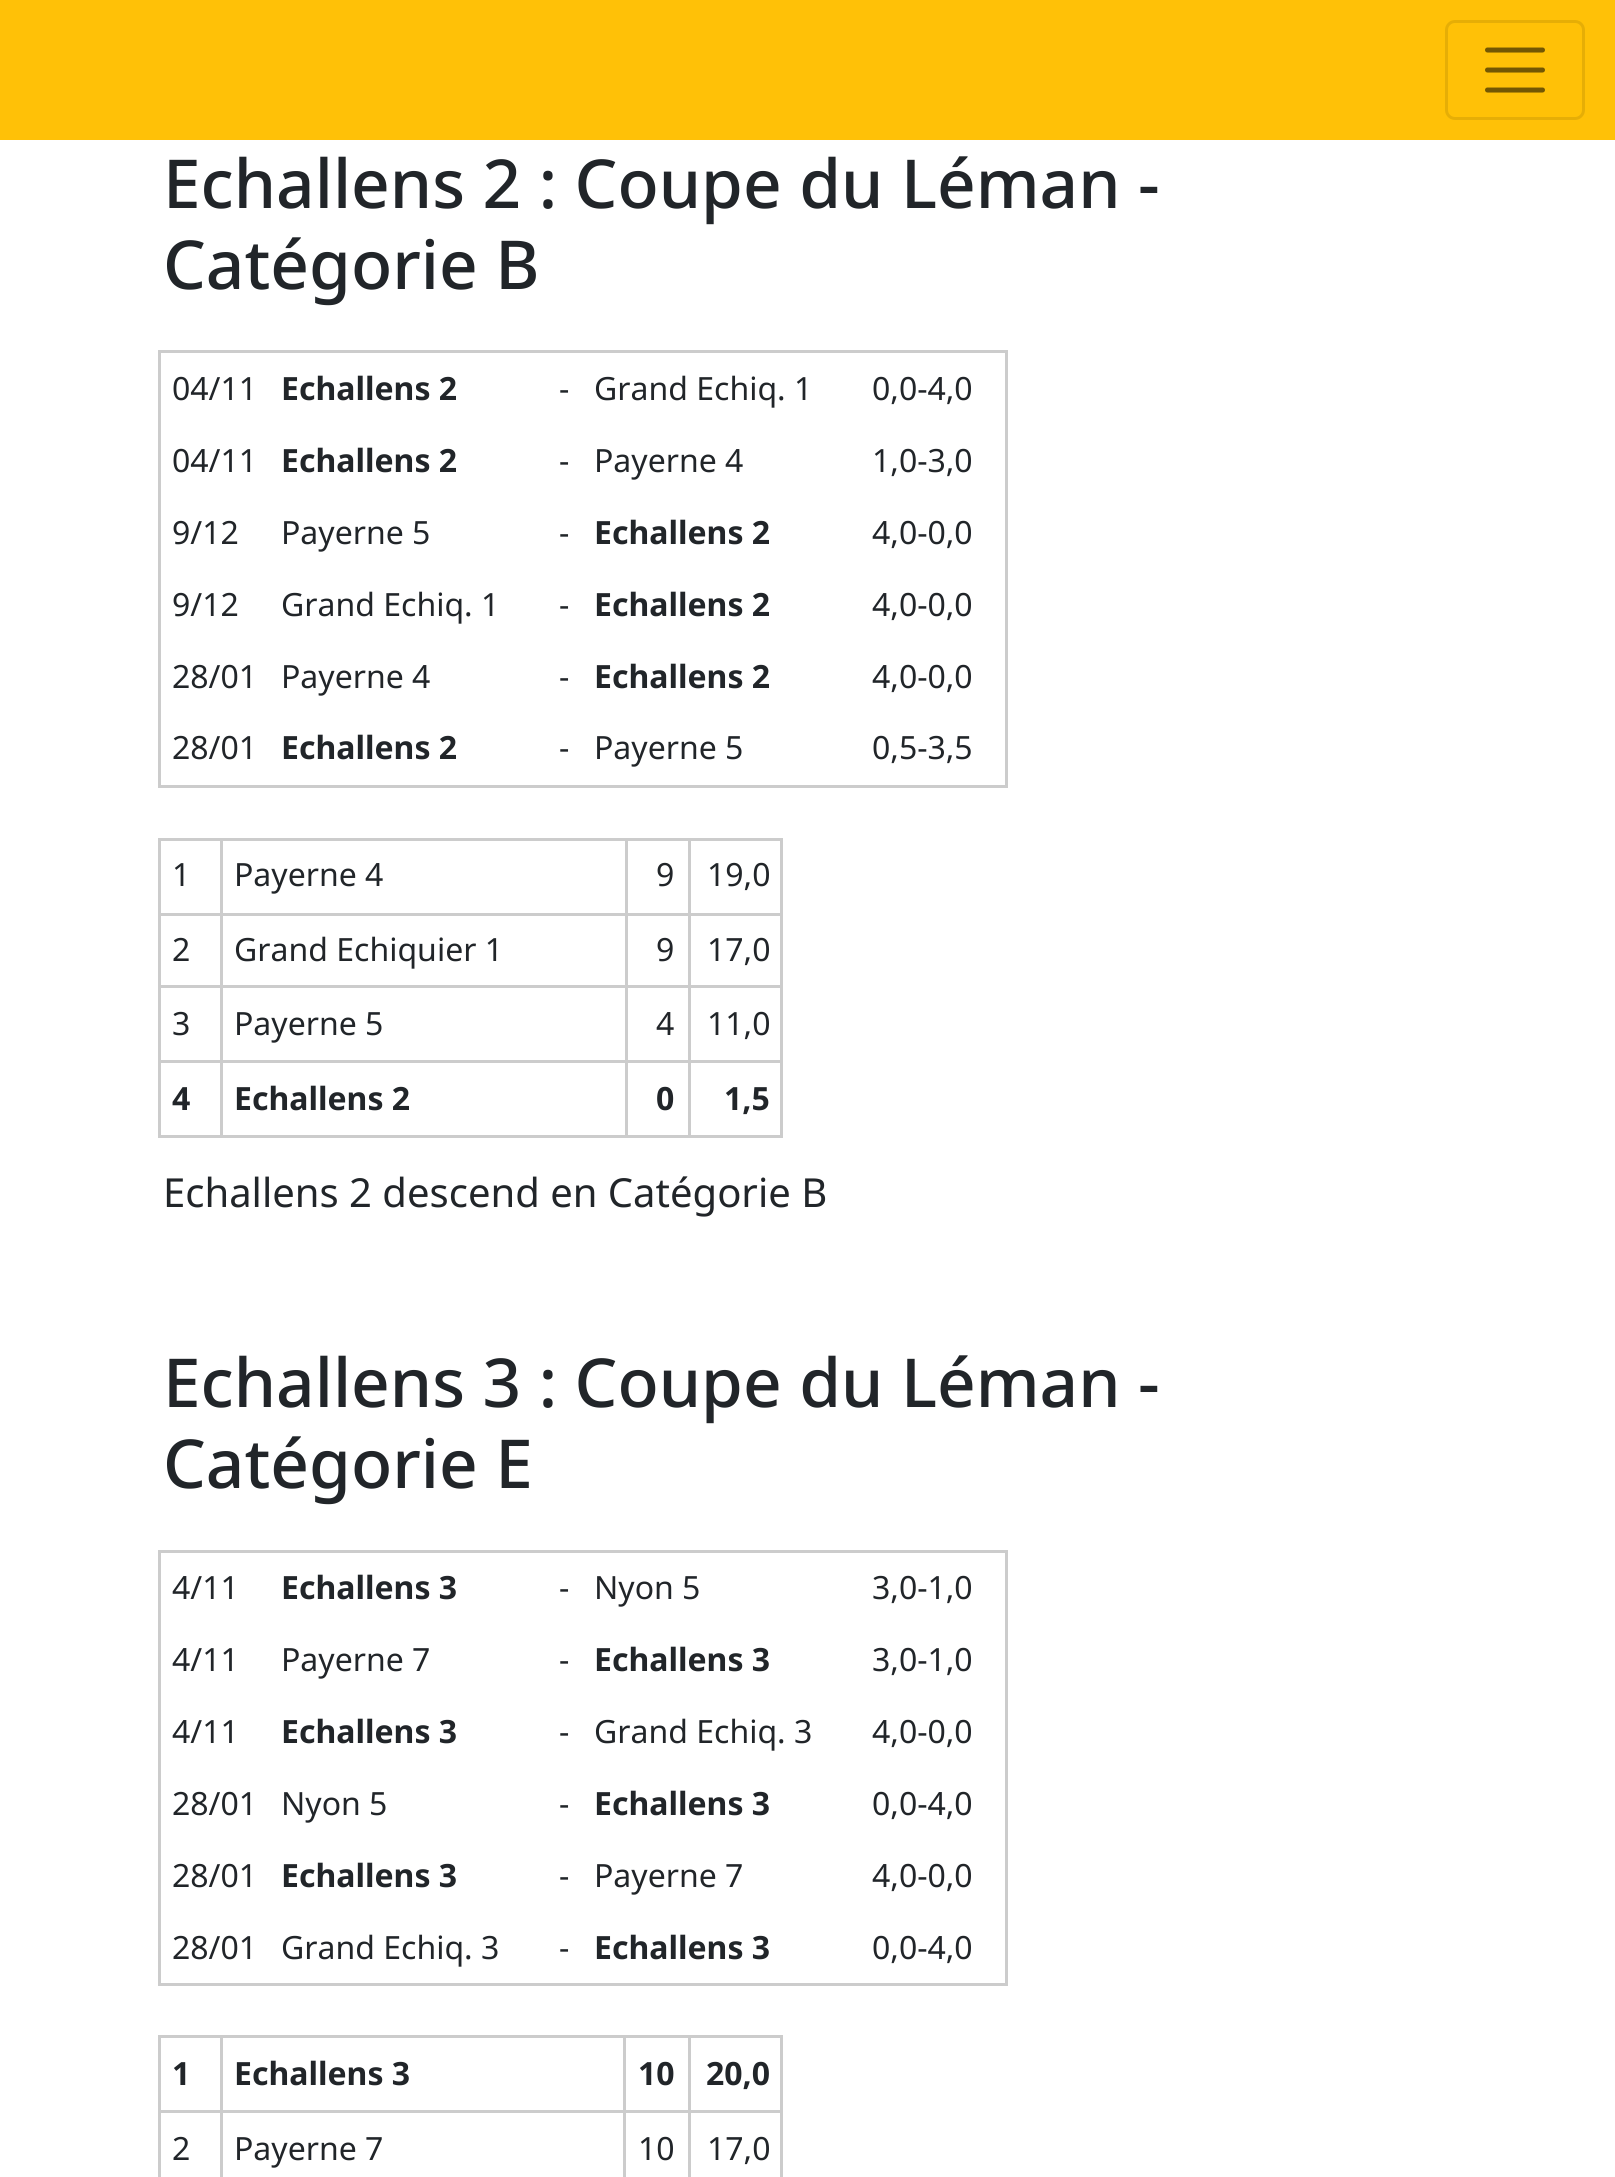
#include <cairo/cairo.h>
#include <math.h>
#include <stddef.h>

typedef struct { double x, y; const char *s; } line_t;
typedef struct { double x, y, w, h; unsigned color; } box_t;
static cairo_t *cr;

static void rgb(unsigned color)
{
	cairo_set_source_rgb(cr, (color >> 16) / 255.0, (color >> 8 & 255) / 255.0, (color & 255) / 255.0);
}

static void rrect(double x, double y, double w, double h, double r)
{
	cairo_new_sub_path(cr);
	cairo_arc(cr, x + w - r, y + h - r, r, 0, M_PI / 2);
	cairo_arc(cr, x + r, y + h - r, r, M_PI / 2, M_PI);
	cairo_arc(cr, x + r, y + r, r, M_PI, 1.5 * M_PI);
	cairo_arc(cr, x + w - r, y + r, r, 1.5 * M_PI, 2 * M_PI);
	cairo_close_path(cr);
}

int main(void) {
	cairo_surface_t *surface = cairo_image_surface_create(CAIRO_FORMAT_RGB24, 1615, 2177);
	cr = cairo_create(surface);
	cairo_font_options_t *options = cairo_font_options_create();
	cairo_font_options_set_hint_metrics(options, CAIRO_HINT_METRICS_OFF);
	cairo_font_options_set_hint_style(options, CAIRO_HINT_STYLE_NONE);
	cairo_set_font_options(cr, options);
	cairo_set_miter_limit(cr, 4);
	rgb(0xffffff);
	cairo_paint(cr);
	rgb(0xffc107);
	cairo_rectangle(cr, 0, 0, 1615, 140);
	cairo_fill(cr);
	rrect(1446.5, 21.5, 137, 97, 8.5);
	rgb(0xe6ae06);
	cairo_set_line_width(cr, 3);
	cairo_stroke(cr);
	cairo_new_path(cr);
	cairo_move_to(cr, 1487.5, 50);
	cairo_line_to(cr, 1542.5, 50);
	cairo_move_to(cr, 1487.5, 70);
	cairo_line_to(cr, 1542.5, 70);
	cairo_move_to(cr, 1487.5, 90);
	cairo_line_to(cr, 1542.5, 90);
	rgb(0x735703);
	cairo_set_line_width(cr, 5);
	cairo_set_line_cap(cr, CAIRO_LINE_CAP_ROUND);
	cairo_stroke(cr);
	{
		static const box_t items[] = {
			{158, 350, 850, 3, 0xcccccc},
			{1005, 350, 3, 438, 0xcccccc},
			{158, 785, 850, 3, 0xcccccc},
			{158, 350, 3, 438, 0xcccccc},
			{688, 838, 95, 3, 0xcccccc},
			{688, 913, 95, 3, 0xcccccc},
			{688, 985, 95, 3, 0xcccccc},
			{688, 1060, 95, 3, 0xcccccc},
			{780, 1060, 3, 78, 0xcccccc},
			{688, 1135, 95, 3, 0xcccccc},
			{688, 1060, 3, 78, 0xcccccc},
			{625, 1060, 65, 3, 0xcccccc},
			{688, 985, 3, 78, 0xcccccc},
			{625, 985, 65, 3, 0xcccccc},
			{688, 913, 3, 75, 0xcccccc},
			{625, 913, 65, 3, 0xcccccc},
			{688, 838, 3, 77, 0xcccccc},
			{625, 838, 65, 3, 0xcccccc},
			{625, 1135, 65, 3, 0xcccccc},
			{625, 1060, 3, 78, 0xcccccc},
			{220, 1060, 408, 3, 0xcccccc},
			{625, 985, 3, 78, 0xcccccc},
			{220, 985, 408, 3, 0xcccccc},
			{625, 913, 3, 75, 0xcccccc},
			{220, 913, 408, 3, 0xcccccc},
			{625, 838, 3, 77, 0xcccccc},
			{220, 838, 408, 3, 0xcccccc},
			{220, 1135, 408, 3, 0xcccccc},
			{220, 1060, 3, 78, 0xcccccc},
			{158, 1060, 65, 3, 0xcccccc},
			{220, 985, 3, 78, 0xcccccc},
			{158, 985, 65, 3, 0xcccccc},
			{220, 913, 3, 75, 0xcccccc},
			{158, 913, 65, 3, 0xcccccc},
			{220, 838, 3, 77, 0xcccccc},
			{158, 838, 65, 3, 0xcccccc},
			{158, 1135, 65, 3, 0xcccccc},
			{158, 1060, 3, 78, 0xcccccc},
			{158, 985, 3, 78, 0xcccccc},
			{158, 913, 3, 75, 0xcccccc},
			{158, 838, 3, 77, 0xcccccc},
			{780, 985, 3, 78, 0xcccccc},
			{780, 913, 3, 75, 0xcccccc},
			{780, 838, 3, 77, 0xcccccc},
			{158, 1550, 850, 3, 0xcccccc},
			{1005, 1550, 3, 435, 0xcccccc},
			{158, 1983, 850, 3, 0xcccccc},
			{158, 1550, 3, 435, 0xcccccc},
			{688, 2035, 95, 3, 0xcccccc},
			{688, 2110, 95, 3, 0xcccccc},
			{688, 2110, 3, 67, 0xcccccc},
			{623, 2110, 67, 3, 0xcccccc},
			{688, 2035, 3, 78, 0xcccccc},
			{623, 2035, 67, 3, 0xcccccc},
			{623, 2110, 3, 67, 0xcccccc},
			{220, 2110, 405, 3, 0xcccccc},
			{623, 2035, 3, 78, 0xcccccc},
			{220, 2035, 405, 3, 0xcccccc},
			{220, 2110, 3, 67, 0xcccccc},
			{158, 2110, 65, 3, 0xcccccc},
			{220, 2035, 3, 78, 0xcccccc},
			{158, 2035, 65, 3, 0xcccccc},
			{158, 2110, 3, 67, 0xcccccc},
			{158, 2035, 3, 78, 0xcccccc},
			{780, 2110, 3, 67, 0xcccccc},
			{780, 2035, 3, 78, 0xcccccc},
		};
		for (size_t i = 0; i < sizeof items / sizeof *items; i++) {
			rgb(items[i].color);
			cairo_rectangle(cr, items[i].x, items[i].y, items[i].w, items[i].h);
			cairo_fill(cr);
		}
	}
	cairo_select_font_face(cr, "Noto Sans Medium", CAIRO_FONT_SLANT_NORMAL, CAIRO_FONT_WEIGHT_NORMAL);
	cairo_set_font_size(cr, 67.5);
	rgb(0x212529);
	cairo_move_to(cr, 163, 208);
	cairo_show_text(cr, "Echallens 2 : Coupe du Léman -");
	cairo_move_to(cr, 163, 289);
	cairo_show_text(cr, "Catégorie B");
	cairo_select_font_face(cr, "Noto Sans", CAIRO_FONT_SLANT_NORMAL, CAIRO_FONT_WEIGHT_NORMAL);
	cairo_set_font_size(cr, 32);
	cairo_move_to(cr, 172, 400);
	cairo_show_text(cr, "04/11");
	cairo_select_font_face(cr, "Noto Sans", CAIRO_FONT_SLANT_NORMAL, CAIRO_FONT_WEIGHT_BOLD);
	cairo_move_to(cr, 281, 400);
	cairo_show_text(cr, "Echallens 2");
	cairo_select_font_face(cr, "Noto Sans", CAIRO_FONT_SLANT_NORMAL, CAIRO_FONT_WEIGHT_NORMAL);
	{
		static const line_t items[] = {
			{559, 400, "-"},
			{594, 400, "Grand Echiq. 1"},
			{872, 400, "0,0-4,0"},
			{172, 472, "04/11"},
		};
		for (size_t i = 0; i < sizeof items / sizeof *items; i++) {
			cairo_move_to(cr, items[i].x, items[i].y);
			cairo_show_text(cr, items[i].s);
		}
	}
	cairo_select_font_face(cr, "Noto Sans", CAIRO_FONT_SLANT_NORMAL, CAIRO_FONT_WEIGHT_BOLD);
	cairo_move_to(cr, 281, 472);
	cairo_show_text(cr, "Echallens 2");
	cairo_select_font_face(cr, "Noto Sans", CAIRO_FONT_SLANT_NORMAL, CAIRO_FONT_WEIGHT_NORMAL);
	{
		static const line_t items[] = {
			{559, 472, "-"},
			{594, 472, "Payerne 4"},
			{872, 472, "1,0-3,0"},
			{172, 544, "9/12"},
			{281, 544, "Payerne 5"},
			{559, 544, "-"},
		};
		for (size_t i = 0; i < sizeof items / sizeof *items; i++) {
			cairo_move_to(cr, items[i].x, items[i].y);
			cairo_show_text(cr, items[i].s);
		}
	}
	cairo_select_font_face(cr, "Noto Sans", CAIRO_FONT_SLANT_NORMAL, CAIRO_FONT_WEIGHT_BOLD);
	cairo_move_to(cr, 594, 544);
	cairo_show_text(cr, "Echallens 2");
	cairo_select_font_face(cr, "Noto Sans", CAIRO_FONT_SLANT_NORMAL, CAIRO_FONT_WEIGHT_NORMAL);
	{
		static const line_t items[] = {
			{872, 544, "4,0-0,0"},
			{172, 616, "9/12"},
			{281, 616, "Grand Echiq. 1"},
			{559, 616, "-"},
		};
		for (size_t i = 0; i < sizeof items / sizeof *items; i++) {
			cairo_move_to(cr, items[i].x, items[i].y);
			cairo_show_text(cr, items[i].s);
		}
	}
	cairo_select_font_face(cr, "Noto Sans", CAIRO_FONT_SLANT_NORMAL, CAIRO_FONT_WEIGHT_BOLD);
	cairo_move_to(cr, 594, 616);
	cairo_show_text(cr, "Echallens 2");
	cairo_select_font_face(cr, "Noto Sans", CAIRO_FONT_SLANT_NORMAL, CAIRO_FONT_WEIGHT_NORMAL);
	{
		static const line_t items[] = {
			{872, 616, "4,0-0,0"},
			{172, 688, "28/01"},
			{281, 688, "Payerne 4"},
			{559, 688, "-"},
		};
		for (size_t i = 0; i < sizeof items / sizeof *items; i++) {
			cairo_move_to(cr, items[i].x, items[i].y);
			cairo_show_text(cr, items[i].s);
		}
	}
	cairo_select_font_face(cr, "Noto Sans", CAIRO_FONT_SLANT_NORMAL, CAIRO_FONT_WEIGHT_BOLD);
	cairo_move_to(cr, 594, 688);
	cairo_show_text(cr, "Echallens 2");
	cairo_select_font_face(cr, "Noto Sans", CAIRO_FONT_SLANT_NORMAL, CAIRO_FONT_WEIGHT_NORMAL);
	cairo_move_to(cr, 872, 688);
	cairo_show_text(cr, "4,0-0,0");
	cairo_move_to(cr, 172, 759);
	cairo_show_text(cr, "28/01");
	cairo_select_font_face(cr, "Noto Sans", CAIRO_FONT_SLANT_NORMAL, CAIRO_FONT_WEIGHT_BOLD);
	cairo_move_to(cr, 281, 759);
	cairo_show_text(cr, "Echallens 2");
	cairo_select_font_face(cr, "Noto Sans", CAIRO_FONT_SLANT_NORMAL, CAIRO_FONT_WEIGHT_NORMAL);
	{
		static const line_t items[] = {
			{559, 759, "-"},
			{594, 759, "Payerne 5"},
			{872, 759, "0,5-3,5"},
			{172, 886, "1"},
			{234, 886, "Payerne 4"},
			{656, 886, "9"},
			{707, 886, "19,0"},
			{172, 961, "2"},
			{234, 961, "Grand Echiquier 1"},
			{656, 961, "9"},
			{707, 961, "17,0"},
			{172, 1035, "3"},
			{234, 1035, "Payerne 5"},
			{656, 1035, "4"},
			{707, 1035, "11,0"},
		};
		for (size_t i = 0; i < sizeof items / sizeof *items; i++) {
			cairo_move_to(cr, items[i].x, items[i].y);
			cairo_show_text(cr, items[i].s);
		}
	}
	cairo_select_font_face(cr, "Noto Sans", CAIRO_FONT_SLANT_NORMAL, CAIRO_FONT_WEIGHT_BOLD);
	{
		static const line_t items[] = {
			{172, 1110, "4"},
			{234, 1110, "Echallens 2"},
			{656, 1110, "0"},
			{724, 1110, "1,5"},
		};
		for (size_t i = 0; i < sizeof items / sizeof *items; i++) {
			cairo_move_to(cr, items[i].x, items[i].y);
			cairo_show_text(cr, items[i].s);
		}
	}
	cairo_select_font_face(cr, "Noto Sans", CAIRO_FONT_SLANT_NORMAL, CAIRO_FONT_WEIGHT_NORMAL);
	cairo_set_font_size(cr, 40);
	cairo_move_to(cr, 163, 1207);
	cairo_show_text(cr, "Echallens 2 descend en Catégorie B");
	cairo_select_font_face(cr, "Noto Sans Medium", CAIRO_FONT_SLANT_NORMAL, CAIRO_FONT_WEIGHT_NORMAL);
	cairo_set_font_size(cr, 67.5);
	cairo_move_to(cr, 163, 1407);
	cairo_show_text(cr, "Echallens 3 : Coupe du Léman -");
	cairo_move_to(cr, 163, 1488);
	cairo_show_text(cr, "Catégorie E");
	cairo_select_font_face(cr, "Noto Sans", CAIRO_FONT_SLANT_NORMAL, CAIRO_FONT_WEIGHT_NORMAL);
	cairo_set_font_size(cr, 32);
	cairo_move_to(cr, 172, 1599);
	cairo_show_text(cr, "4/11");
	cairo_select_font_face(cr, "Noto Sans", CAIRO_FONT_SLANT_NORMAL, CAIRO_FONT_WEIGHT_BOLD);
	cairo_move_to(cr, 281, 1599);
	cairo_show_text(cr, "Echallens 3");
	cairo_select_font_face(cr, "Noto Sans", CAIRO_FONT_SLANT_NORMAL, CAIRO_FONT_WEIGHT_NORMAL);
	{
		static const line_t items[] = {
			{559, 1599, "-"},
			{594, 1599, "Nyon 5"},
			{872, 1599, "3,0-1,0"},
			{172, 1671, "4/11"},
			{281, 1671, "Payerne 7"},
			{559, 1671, "-"},
		};
		for (size_t i = 0; i < sizeof items / sizeof *items; i++) {
			cairo_move_to(cr, items[i].x, items[i].y);
			cairo_show_text(cr, items[i].s);
		}
	}
	cairo_select_font_face(cr, "Noto Sans", CAIRO_FONT_SLANT_NORMAL, CAIRO_FONT_WEIGHT_BOLD);
	cairo_move_to(cr, 594, 1671);
	cairo_show_text(cr, "Echallens 3");
	cairo_select_font_face(cr, "Noto Sans", CAIRO_FONT_SLANT_NORMAL, CAIRO_FONT_WEIGHT_NORMAL);
	cairo_move_to(cr, 872, 1671);
	cairo_show_text(cr, "3,0-1,0");
	cairo_move_to(cr, 172, 1743);
	cairo_show_text(cr, "4/11");
	cairo_select_font_face(cr, "Noto Sans", CAIRO_FONT_SLANT_NORMAL, CAIRO_FONT_WEIGHT_BOLD);
	cairo_move_to(cr, 281, 1743);
	cairo_show_text(cr, "Echallens 3");
	cairo_select_font_face(cr, "Noto Sans", CAIRO_FONT_SLANT_NORMAL, CAIRO_FONT_WEIGHT_NORMAL);
	{
		static const line_t items[] = {
			{559, 1743, "-"},
			{594, 1743, "Grand Echiq. 3"},
			{872, 1743, "4,0-0,0"},
			{172, 1815, "28/01"},
			{281, 1815, "Nyon 5"},
			{559, 1815, "-"},
		};
		for (size_t i = 0; i < sizeof items / sizeof *items; i++) {
			cairo_move_to(cr, items[i].x, items[i].y);
			cairo_show_text(cr, items[i].s);
		}
	}
	cairo_select_font_face(cr, "Noto Sans", CAIRO_FONT_SLANT_NORMAL, CAIRO_FONT_WEIGHT_BOLD);
	cairo_move_to(cr, 594, 1815);
	cairo_show_text(cr, "Echallens 3");
	cairo_select_font_face(cr, "Noto Sans", CAIRO_FONT_SLANT_NORMAL, CAIRO_FONT_WEIGHT_NORMAL);
	cairo_move_to(cr, 872, 1815);
	cairo_show_text(cr, "0,0-4,0");
	cairo_move_to(cr, 172, 1887);
	cairo_show_text(cr, "28/01");
	cairo_select_font_face(cr, "Noto Sans", CAIRO_FONT_SLANT_NORMAL, CAIRO_FONT_WEIGHT_BOLD);
	cairo_move_to(cr, 281, 1887);
	cairo_show_text(cr, "Echallens 3");
	cairo_select_font_face(cr, "Noto Sans", CAIRO_FONT_SLANT_NORMAL, CAIRO_FONT_WEIGHT_NORMAL);
	{
		static const line_t items[] = {
			{559, 1887, "-"},
			{594, 1887, "Payerne 7"},
			{872, 1887, "4,0-0,0"},
			{172, 1959, "28/01"},
			{281, 1959, "Grand Echiq. 3"},
			{559, 1959, "-"},
		};
		for (size_t i = 0; i < sizeof items / sizeof *items; i++) {
			cairo_move_to(cr, items[i].x, items[i].y);
			cairo_show_text(cr, items[i].s);
		}
	}
	cairo_select_font_face(cr, "Noto Sans", CAIRO_FONT_SLANT_NORMAL, CAIRO_FONT_WEIGHT_BOLD);
	cairo_move_to(cr, 594, 1959);
	cairo_show_text(cr, "Echallens 3");
	cairo_select_font_face(cr, "Noto Sans", CAIRO_FONT_SLANT_NORMAL, CAIRO_FONT_WEIGHT_NORMAL);
	cairo_move_to(cr, 872, 1959);
	cairo_show_text(cr, "0,0-4,0");
	cairo_select_font_face(cr, "Noto Sans", CAIRO_FONT_SLANT_NORMAL, CAIRO_FONT_WEIGHT_BOLD);
	{
		static const line_t items[] = {
			{172, 2085, "1"},
			{234, 2085, "Echallens 3"},
			{638, 2085, "10"},
			{706, 2085, "20,0"},
		};
		for (size_t i = 0; i < sizeof items / sizeof *items; i++) {
			cairo_move_to(cr, items[i].x, items[i].y);
			cairo_show_text(cr, items[i].s);
		}
	}
	cairo_select_font_face(cr, "Noto Sans", CAIRO_FONT_SLANT_NORMAL, CAIRO_FONT_WEIGHT_NORMAL);
	{
		static const line_t items[] = {
			{172, 2160, "2"},
			{234, 2160, "Payerne 7"},
			{638, 2160, "10"},
			{707, 2160, "17,0"},
		};
		for (size_t i = 0; i < sizeof items / sizeof *items; i++) {
			cairo_move_to(cr, items[i].x, items[i].y);
			cairo_show_text(cr, items[i].s);
		}
	}
	cairo_surface_write_to_png(surface, "page.png");
	cairo_font_options_destroy(options);
	cairo_destroy(cr);
	cairo_surface_destroy(surface);
	return 0;
}
